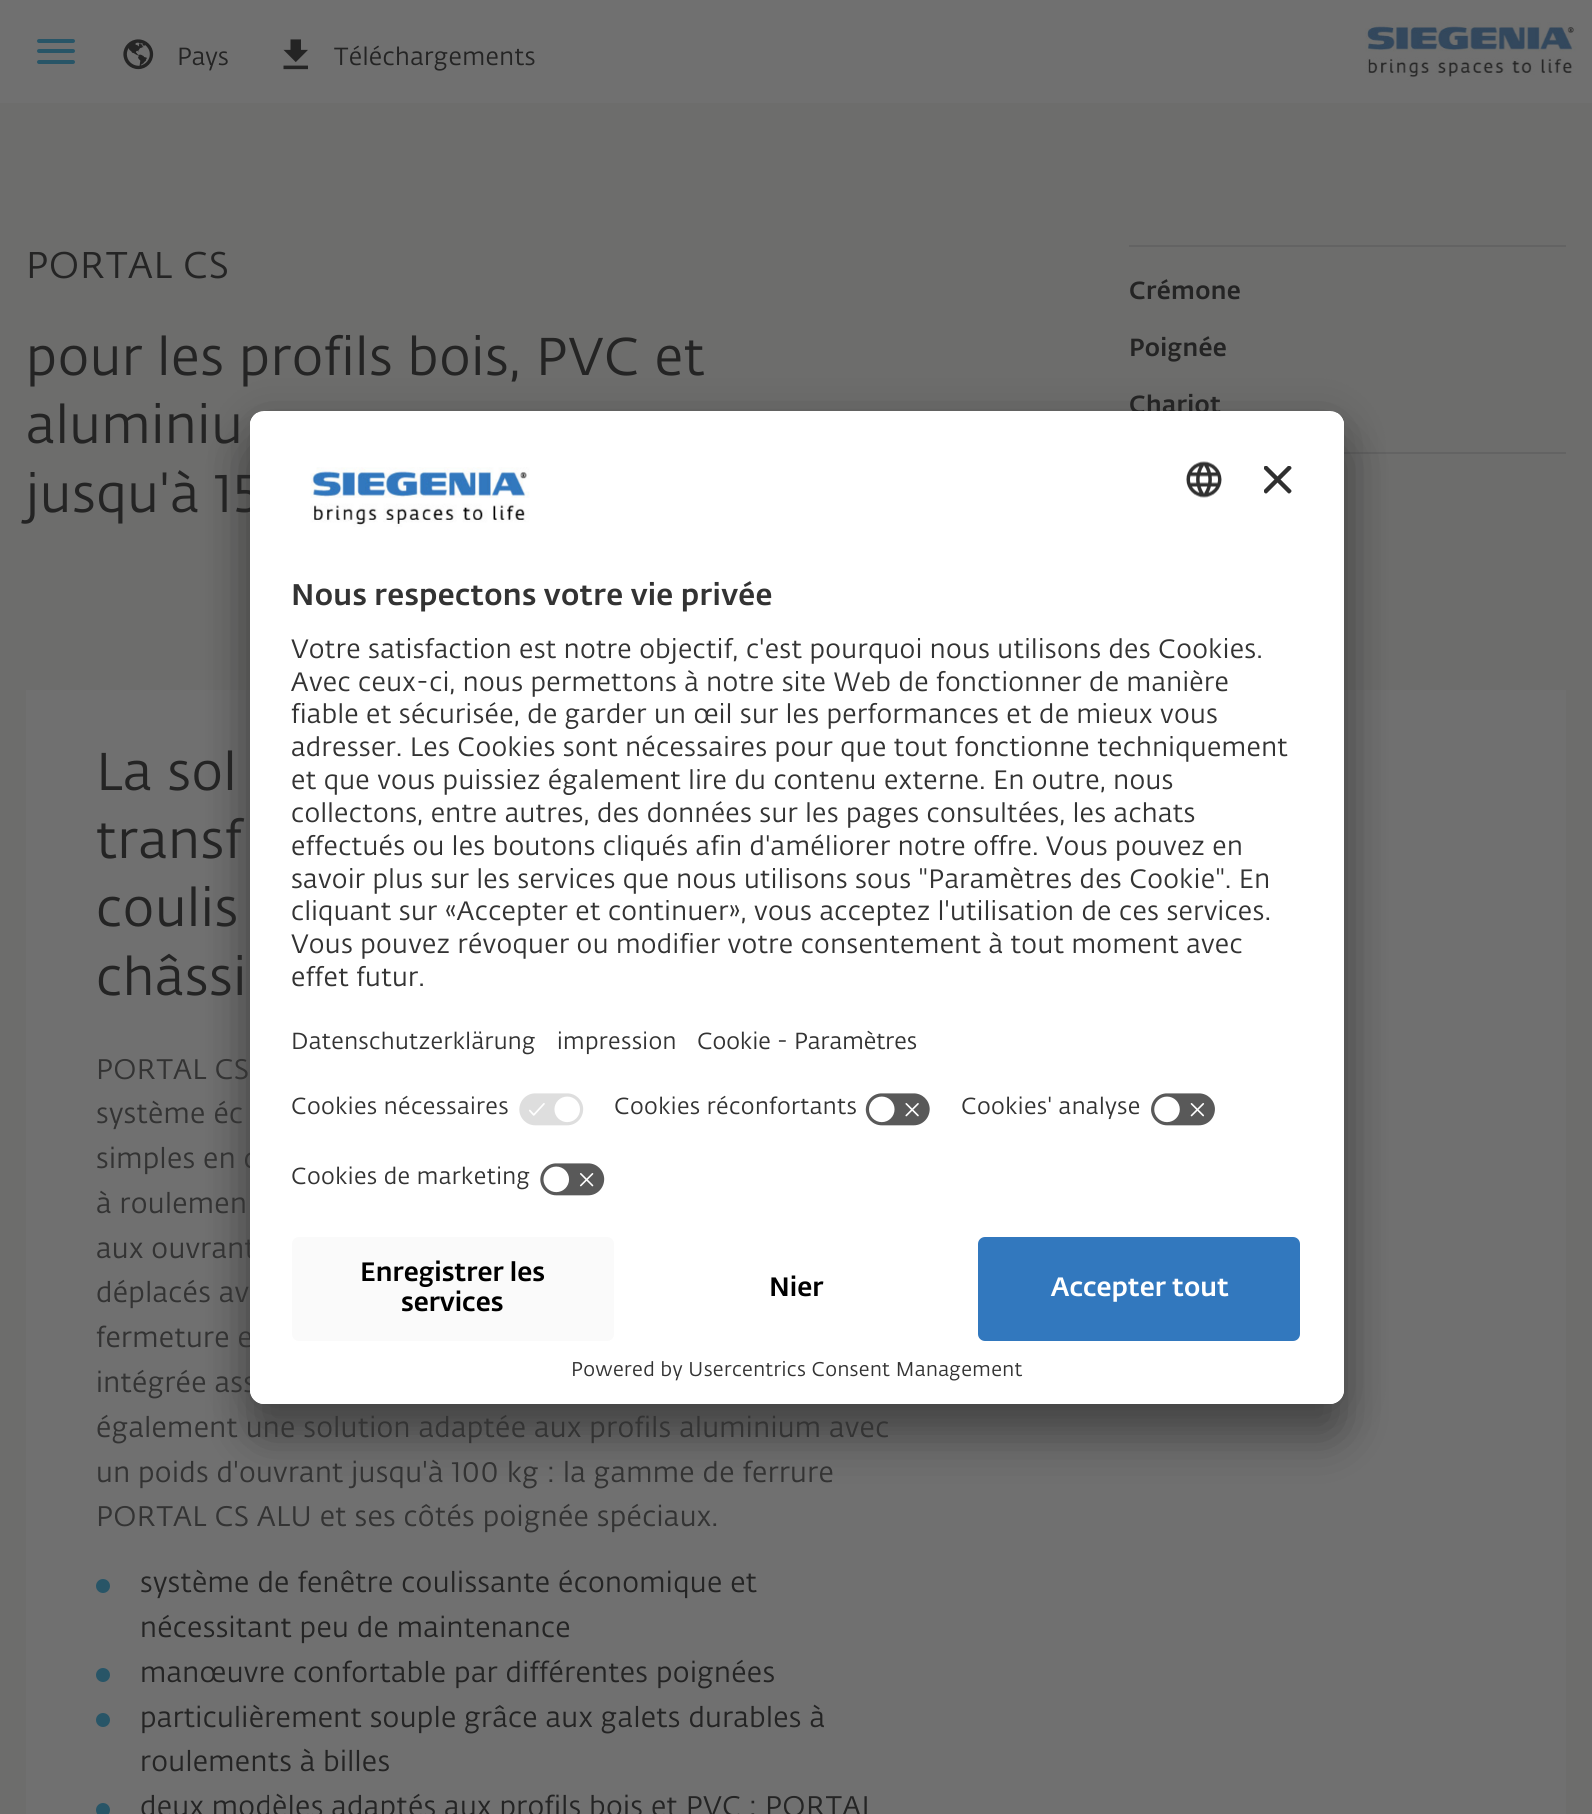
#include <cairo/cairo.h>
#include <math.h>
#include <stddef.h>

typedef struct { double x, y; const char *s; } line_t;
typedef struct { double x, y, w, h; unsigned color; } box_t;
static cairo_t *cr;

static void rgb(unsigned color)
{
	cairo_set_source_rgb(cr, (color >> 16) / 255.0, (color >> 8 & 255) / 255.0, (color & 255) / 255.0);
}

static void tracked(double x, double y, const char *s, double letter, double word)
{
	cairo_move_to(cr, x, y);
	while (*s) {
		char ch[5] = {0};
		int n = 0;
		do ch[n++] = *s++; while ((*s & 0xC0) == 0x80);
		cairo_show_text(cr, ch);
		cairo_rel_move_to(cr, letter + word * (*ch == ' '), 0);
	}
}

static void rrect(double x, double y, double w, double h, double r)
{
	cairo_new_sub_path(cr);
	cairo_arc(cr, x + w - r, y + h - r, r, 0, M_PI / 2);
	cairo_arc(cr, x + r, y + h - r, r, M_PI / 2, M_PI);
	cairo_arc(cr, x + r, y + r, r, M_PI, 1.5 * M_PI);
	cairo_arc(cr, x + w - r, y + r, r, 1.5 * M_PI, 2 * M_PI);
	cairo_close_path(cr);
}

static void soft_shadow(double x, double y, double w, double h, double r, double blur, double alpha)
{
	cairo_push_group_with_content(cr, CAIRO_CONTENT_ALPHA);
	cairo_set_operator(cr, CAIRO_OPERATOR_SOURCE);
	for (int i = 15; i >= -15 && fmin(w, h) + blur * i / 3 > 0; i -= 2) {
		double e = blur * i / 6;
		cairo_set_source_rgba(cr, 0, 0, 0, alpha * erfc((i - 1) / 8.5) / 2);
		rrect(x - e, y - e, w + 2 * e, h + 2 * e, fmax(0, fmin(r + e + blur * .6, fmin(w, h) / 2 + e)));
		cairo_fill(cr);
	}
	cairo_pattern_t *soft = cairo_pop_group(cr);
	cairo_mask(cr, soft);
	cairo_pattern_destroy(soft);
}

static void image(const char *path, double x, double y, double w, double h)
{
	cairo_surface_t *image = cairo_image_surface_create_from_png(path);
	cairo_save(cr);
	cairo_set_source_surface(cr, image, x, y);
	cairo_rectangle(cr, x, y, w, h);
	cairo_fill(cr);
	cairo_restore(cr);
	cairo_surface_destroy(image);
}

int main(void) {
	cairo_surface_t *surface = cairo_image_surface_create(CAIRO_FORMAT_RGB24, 1592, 1814);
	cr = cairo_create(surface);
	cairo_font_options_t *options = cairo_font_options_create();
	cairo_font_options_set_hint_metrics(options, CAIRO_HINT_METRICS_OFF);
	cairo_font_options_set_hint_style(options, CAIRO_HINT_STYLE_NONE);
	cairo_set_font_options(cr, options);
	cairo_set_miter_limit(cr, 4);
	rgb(0x6d6d6c);
	cairo_paint(cr);
	rgb(0x707070);
	cairo_rectangle(cr, 0, 0, 1592, 103);
	cairo_fill(cr);
	rgb(0x285567);
	rrect(37, 39, 38, 4, 2);
	cairo_fill(cr);
	rrect(37, 49, 38, 4, 2);
	cairo_fill(cr);
	rrect(37, 60, 38, 4, 2);
	cairo_fill(cr);
	image("img/1.png", 123, 39, 31, 31);
	image("img/2.png", 283, 39, 25, 31);
	image("img/3.png", 1365, 22, 212, 58);
	{
		static const box_t items[] = {
			{1129, 245, 437, 2, 0x636363},
			{1344, 452, 222, 2, 0x636363},
			{26, 690, 1540, 1124, 0x707070},
		};
		for (size_t i = 0; i < sizeof items / sizeof *items; i++) {
			rgb(items[i].color);
			cairo_rectangle(cr, items[i].x, items[i].y, items[i].w, items[i].h);
			cairo_fill(cr);
		}
	}
	rgb(0x285567);
	cairo_arc(cr, 103, 1586, 7, 0, 2 * M_PI);
	cairo_fill(cr);
	cairo_arc(cr, 103, 1675, 7, 0, 2 * M_PI);
	cairo_fill(cr);
	cairo_arc(cr, 103, 1720, 7, 0, 2 * M_PI);
	cairo_fill(cr);
	cairo_arc(cr, 103, 1810, 7, 0, 2 * M_PI);
	cairo_fill(cr);
	rgb(0x000000);
	soft_shadow(250, 446, 1094, 993, 14, 24.5, 0.3);
	soft_shadow(250, 420, 1094, 992, 14, 23, 0.22);
	cairo_select_font_face(cr, "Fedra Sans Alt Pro", CAIRO_FONT_SLANT_NORMAL, CAIRO_FONT_WEIGHT_NORMAL);
	cairo_set_font_size(cr, 24.5);
	rgb(0x242424);
	cairo_move_to(cr, 177, 65);
	cairo_show_text(cr, "Pays");
	tracked(334, 65, "Téléchargements", 0.35, 0);
	cairo_set_font_size(cr, 36.75);
	tracked(26, 278, "PORTAL CS", 0.7, 0);
	cairo_set_font_size(cr, 52.5);
	{
		static const line_t items[] = {
			{26, 375, "pour les profils bois, PVC et"},
			{26, 443, "aluminiu"},
			{26, 512, "jusqu'à 15"},
		};
		for (size_t i = 0; i < sizeof items / sizeof *items; i++) {
			tracked(items[i].x, items[i].y, items[i].s, 0.7, 0);
		}
	}
	cairo_select_font_face(cr, "Fedra Sans Alt Pro Medium", CAIRO_FONT_SLANT_NORMAL, CAIRO_FONT_WEIGHT_NORMAL);
	cairo_set_font_size(cr, 24.5);
	{
		static const line_t items[] = {
			{1129, 299, "Crémone"},
			{1129, 356, "Poignée"},
			{1129, 413, "Chariot"},
		};
		for (size_t i = 0; i < sizeof items / sizeof *items; i++) {
			tracked(items[i].x, items[i].y, items[i].s, 0.35, 0);
		}
	}
	cairo_select_font_face(cr, "Fedra Sans Alt Pro", CAIRO_FONT_SLANT_NORMAL, CAIRO_FONT_WEIGHT_NORMAL);
	cairo_set_font_size(cr, 52.5);
	{
		static const line_t items[] = {
			{96, 790, "La sol"},
			{96, 858, "transf"},
			{96, 926, "coulis"},
			{96, 995, "châssi"},
		};
		for (size_t i = 0; i < sizeof items / sizeof *items; i++) {
			tracked(items[i].x, items[i].y, items[i].s, 0.7, 0);
		}
	}
	cairo_set_font_size(cr, 28);
	rgb(0x333333);
	{
		static const line_t items[] = {
			{96, 1079, "PORTAL CS"},
			{96, 1123, "système éc"},
			{96, 1168, "simples en c"},
			{96, 1213, "à roulemen"},
			{96, 1258, "aux ouvrant"},
			{96, 1302, "déplacés av"},
			{96, 1347, "fermeture e"},
			{96, 1392, "intégrée ass"},
			{96, 1437, "également une solution adaptée aux profils aluminium avec"},
			{96, 1482, "un poids d'ouvrant jusqu'à 100 kg : la gamme de ferrure"},
			{96, 1526, "PORTAL CS ALU et ses côtés poignée spéciaux."},
		};
		for (size_t i = 0; i < sizeof items / sizeof *items; i++) {
			tracked(items[i].x, items[i].y, items[i].s, 0.35, 0);
		}
	}
	rgb(0x242424);
	{
		static const line_t items[] = {
			{140, 1592, "système de fenêtre coulissante économique et"},
			{140, 1637, "nécessitant peu de maintenance"},
			{140, 1682, "manœuvre confortable par différentes poignées"},
			{140, 1727, "particulièrement souple grâce aux galets durables à"},
			{140, 1771, "roulements à billes"},
			{140, 1816, "deux modèles adaptés aux profils bois et PVC : PORTAL"},
		};
		for (size_t i = 0; i < sizeof items / sizeof *items; i++) {
			tracked(items[i].x, items[i].y, items[i].s, 0.35, 0);
		}
	}
	rgb(0xffffff);
	rrect(250, 411, 1094, 993, 14);
	cairo_fill(cr);
	cairo_save(cr);
	rrect(250, 411, 1094, 993, 14);
	cairo_clip(cr);
	cairo_new_path(cr);
	cairo_move_to(cr, 264, 411);
	cairo_line_to(cr, 1330, 411);
	cairo_curve_to(cr, 1337.5, 411, 1344, 417.5, 1344, 425);
	cairo_line_to(cr, 1344, 1223);
	cairo_line_to(cr, 250, 1223);
	cairo_line_to(cr, 250, 425);
	cairo_curve_to(cr, 250, 417.5, 256.5, 411, 264, 411);
	cairo_close_path(cr);
	cairo_clip(cr);
	cairo_rectangle(cr, 250, 413, 1094, 810);
	cairo_fill(cr);
	cairo_rectangle(cr, 250, 413, 1094, 670);
	cairo_fill(cr);
	cairo_restore(cr);
	image("img/4.png", 310, 467, 220, 60);
	image("img/5.png", 1186, 461, 36, 37);
	image("img/6.png", 1264, 466, 28, 28);
	cairo_select_font_face(cr, "Fedra Sans Alt Pro Medium", CAIRO_FONT_SLANT_NORMAL, CAIRO_FONT_WEIGHT_NORMAL);
	cairo_set_font_size(cr, 29.5);
	rgb(0x333333);
	tracked(291, 605, "Nous respectons votre vie privée", 0.35, 0);
	cairo_select_font_face(cr, "Fedra Sans Alt Pro", CAIRO_FONT_SLANT_NORMAL, CAIRO_FONT_WEIGHT_NORMAL);
	cairo_set_font_size(cr, 26.25);
	{
		static const line_t items[] = {
			{291, 658, "Votre satisfaction est notre objectif, c'est pourquoi nous utilisons des Cookies."},
			{291, 691, "Avec ceux-ci, nous permettons à notre site Web de fonctionner de manière"},
			{291, 723, "fiable et sécurisée, de garder un œil sur les performances et de mieux vous"},
			{291, 756, "adresser. Les Cookies sont nécessaires pour que tout fonctionne techniquement"},
			{291, 789, "et que vous puissiez également lire du contenu externe. En outre, nous"},
			{291, 822, "collectons, entre autres, des données sur les pages consultées, les achats"},
			{291, 855, "effectués ou les boutons cliqués afin d'améliorer notre offre. Vous pouvez en"},
			{291, 888, "savoir plus sur les services que nous utilisons sous \"Paramètres des Cookie\". En"},
			{291, 920, "cliquant sur «Accepter et continuer», vous acceptez l'utilisation de ces services."},
			{291, 953, "Vous pouvez révoquer ou modifier votre consentement à tout moment avec"},
			{291, 986, "effet futur."},
		};
		for (size_t i = 0; i < sizeof items / sizeof *items; i++) {
			tracked(items[i].x, items[i].y, items[i].s, 0.35, 0);
		}
	}
	cairo_set_font_size(cr, 23);
	tracked(291, 1049, "Datenschutzerklärung", 0.35, 0);
	tracked(557, 1049, "impression", 0.35, 0);
	cairo_move_to(cr, 697, 1049);
	cairo_show_text(cr, "Cookie - Paramètres");
	tracked(291, 1114, "Cookies nécessaires", 0.35, 0);
	image("img/7.png", 519, 1093, 65, 33);
	tracked(614, 1114, "Cookies réconfortants", 0.35, 0);
	image("img/8.png", 865, 1093, 65, 33);
	tracked(961, 1114, "Cookies' analyse", 0.35, 0);
	image("img/9.png", 1151, 1093, 64, 33);
	tracked(291, 1184, "Cookies de marketing", 0.35, 0);
	image("img/10.png", 540, 1163, 65, 33);
	rgb(0xffffff);
	cairo_new_path(cr);
	cairo_move_to(cr, 250, 1223);
	cairo_line_to(cr, 1344, 1223);
	cairo_line_to(cr, 1344, 1390);
	cairo_curve_to(cr, 1344, 1397.5, 1337.5, 1404, 1330, 1404);
	cairo_line_to(cr, 264, 1404);
	cairo_curve_to(cr, 256.5, 1404, 250, 1397.5, 250, 1390);
	cairo_close_path(cr);
	cairo_fill(cr);
	rgb(0xfafafa);
	rrect(292, 1237, 322, 104, 7);
	cairo_fill(cr);
	cairo_select_font_face(cr, "Fedra Sans Alt Pro Medium", CAIRO_FONT_SLANT_NORMAL, CAIRO_FONT_WEIGHT_NORMAL);
	cairo_set_font_size(cr, 26.25);
	rgb(0x000000);
	{
		static const line_t items[] = {
			{360, 1281, "Enregistrer les"},
			{401, 1311, "services"},
			{769, 1296, "Nier"},
		};
		for (size_t i = 0; i < sizeof items / sizeof *items; i++) {
			cairo_move_to(cr, items[i].x, items[i].y);
			cairo_show_text(cr, items[i].s);
		}
	}
	rgb(0x3278be);
	rrect(978, 1237, 322, 104, 7);
	cairo_fill(cr);
	rgb(0xffffff);
	cairo_move_to(cr, 1051, 1296);
	cairo_show_text(cr, "Accepter tout");
	cairo_select_font_face(cr, "Fedra Sans Alt Pro", CAIRO_FONT_SLANT_NORMAL, CAIRO_FONT_WEIGHT_NORMAL);
	cairo_set_font_size(cr, 19.7);
	rgb(0x333333);
	tracked(571, 1376, "Powered by Usercentrics Consent Management", 0.35, 0);
	cairo_surface_write_to_png(surface, "page.png");
	cairo_font_options_destroy(options);
	cairo_destroy(cr);
	cairo_surface_destroy(surface);
	return 0;
}
